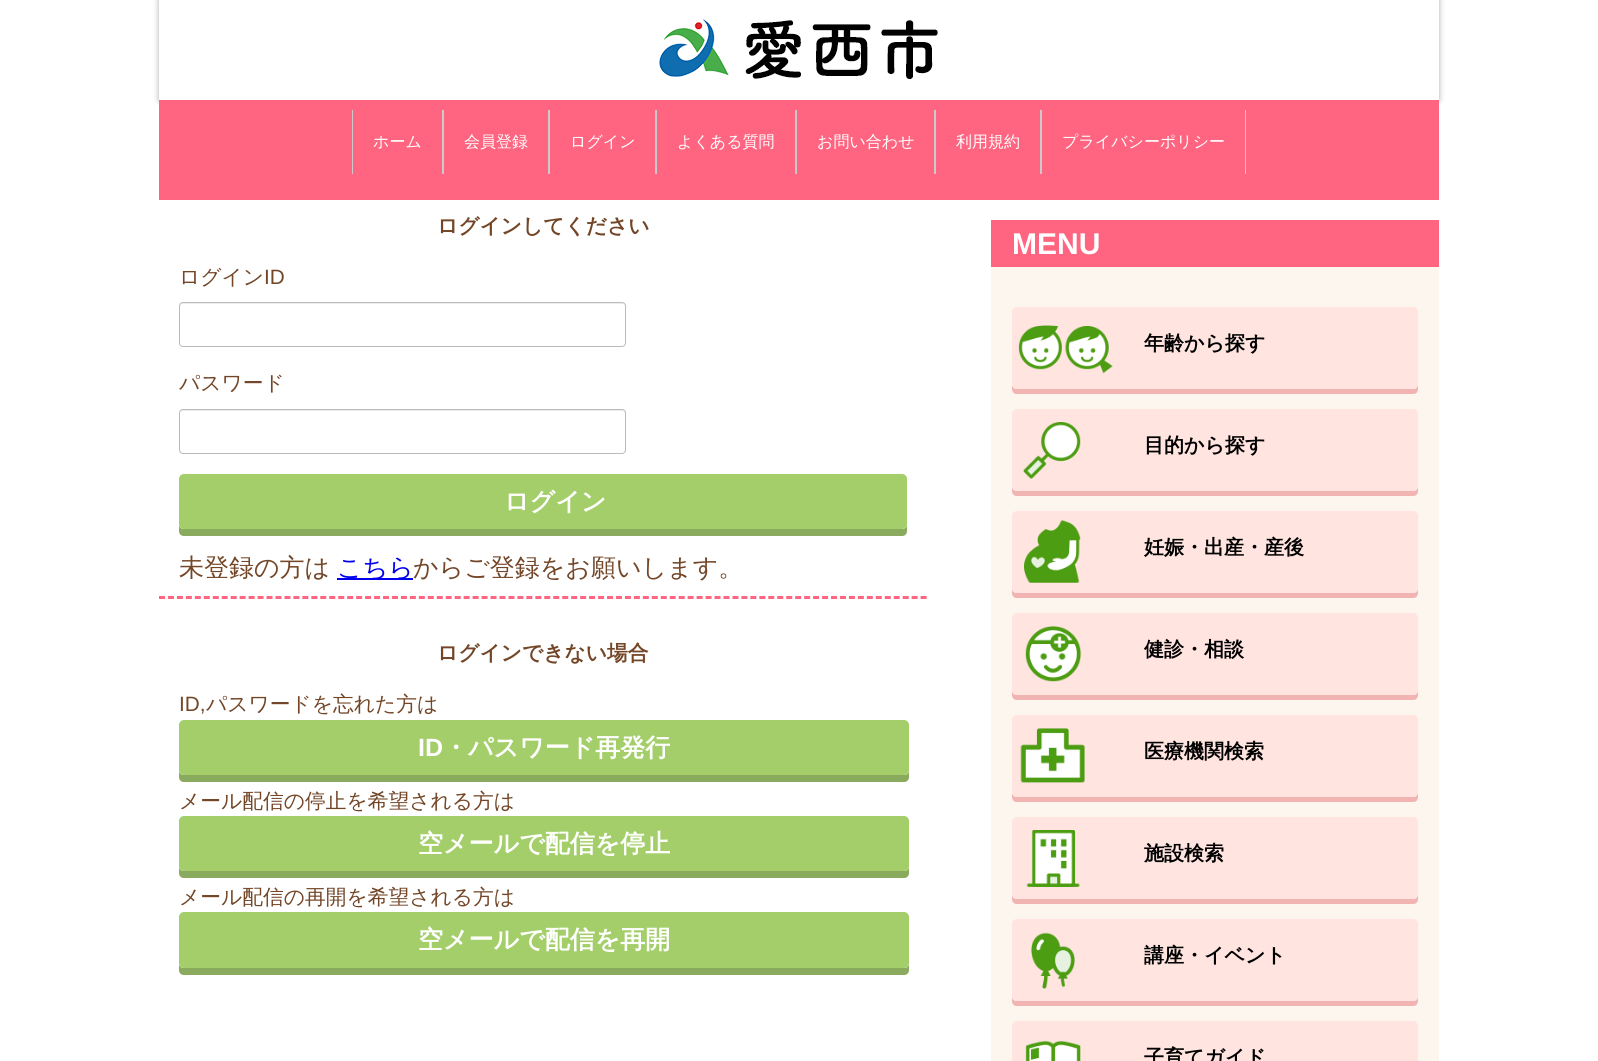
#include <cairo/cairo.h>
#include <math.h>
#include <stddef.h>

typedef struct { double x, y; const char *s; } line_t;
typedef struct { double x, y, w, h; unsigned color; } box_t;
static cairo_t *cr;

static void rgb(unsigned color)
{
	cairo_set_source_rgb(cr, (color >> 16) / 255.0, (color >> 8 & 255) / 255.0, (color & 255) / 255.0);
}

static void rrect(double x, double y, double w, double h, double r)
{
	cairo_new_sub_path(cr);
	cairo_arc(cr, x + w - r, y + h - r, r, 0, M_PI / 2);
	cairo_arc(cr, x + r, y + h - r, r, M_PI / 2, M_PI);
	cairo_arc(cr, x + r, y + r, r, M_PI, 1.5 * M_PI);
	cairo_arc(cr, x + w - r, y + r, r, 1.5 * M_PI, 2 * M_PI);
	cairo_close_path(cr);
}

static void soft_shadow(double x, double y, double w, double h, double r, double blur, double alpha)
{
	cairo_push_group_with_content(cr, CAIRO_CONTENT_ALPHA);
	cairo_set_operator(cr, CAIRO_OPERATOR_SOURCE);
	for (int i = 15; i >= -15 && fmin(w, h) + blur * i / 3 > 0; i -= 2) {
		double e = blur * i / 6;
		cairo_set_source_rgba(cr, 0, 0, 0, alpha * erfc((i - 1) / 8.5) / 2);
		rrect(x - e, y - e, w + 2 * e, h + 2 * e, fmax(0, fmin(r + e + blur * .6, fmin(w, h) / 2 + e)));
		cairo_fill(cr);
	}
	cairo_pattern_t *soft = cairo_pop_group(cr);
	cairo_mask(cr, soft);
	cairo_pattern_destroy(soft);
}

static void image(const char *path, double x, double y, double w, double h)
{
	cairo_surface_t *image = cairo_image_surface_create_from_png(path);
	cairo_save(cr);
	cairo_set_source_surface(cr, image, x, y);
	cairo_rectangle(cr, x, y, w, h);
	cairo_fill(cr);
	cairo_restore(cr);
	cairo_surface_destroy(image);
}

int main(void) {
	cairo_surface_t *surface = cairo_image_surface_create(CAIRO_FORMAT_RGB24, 1598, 1061);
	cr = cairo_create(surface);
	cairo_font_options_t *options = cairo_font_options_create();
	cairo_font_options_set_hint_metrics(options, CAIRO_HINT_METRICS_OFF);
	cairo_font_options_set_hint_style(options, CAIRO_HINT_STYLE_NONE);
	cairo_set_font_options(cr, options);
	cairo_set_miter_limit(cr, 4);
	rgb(0xffffff);
	cairo_paint(cr);
	cairo_save(cr);
	cairo_set_fill_rule(cr, CAIRO_FILL_RULE_EVEN_ODD);
	cairo_new_path(cr);
	cairo_move_to(cr, 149, 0);
	cairo_line_to(cr, 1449, 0);
	cairo_line_to(cr, 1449, 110);
	cairo_line_to(cr, 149, 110);
	cairo_close_path(cr);
	cairo_move_to(cr, 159, 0);
	cairo_line_to(cr, 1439, 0);
	cairo_line_to(cr, 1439, 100);
	cairo_line_to(cr, 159, 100);
	cairo_close_path(cr);
	cairo_clip(cr);
	rgb(0xadabab);
	soft_shadow(159, 0, 1280, 100, 0, 3, 1);
	cairo_restore(cr);
	image("img/1.png", 659, 19, 279, 60);
	{
		static const box_t items[] = {
			{159, 100, 1280, 100, 0xff6580},
			{442, 110, 2, 64, 0xcacaca},
			{352, 110, 1, 64, 0xcacaca},
			{548, 110, 2, 64, 0xcacaca},
			{655, 110, 2, 64, 0xcacaca},
			{795, 110, 2, 64, 0xcacaca},
			{934, 110, 2, 64, 0xcacaca},
			{1040, 110, 2, 64, 0xcacaca},
			{1245, 110, 1, 64, 0xcacaca},
		};
		for (size_t i = 0; i < sizeof items / sizeof *items; i++) {
			rgb(items[i].color);
			cairo_rectangle(cr, items[i].x, items[i].y, items[i].w, items[i].h);
			cairo_fill(cr);
		}
	}
	rgb(0xececec);
	cairo_new_path(cr);
	cairo_move_to(cr, 183, 304);
	cairo_line_to(cr, 622, 304);
	cairo_curve_to(cr, 624, 304, 625, 305, 625, 307);
	cairo_curve_to(cr, 625, 305, 624, 303, 622, 303);
	cairo_line_to(cr, 182, 303);
	cairo_line_to(cr, 180, 305);
	cairo_line_to(cr, 180, 307);
	cairo_curve_to(cr, 180, 305, 181, 304, 183, 304);
	cairo_close_path(cr);
	cairo_fill(cr);
	rrect(179.5, 302.5, 446, 44, 3.5);
	rgb(0xbbbbbb);
	cairo_set_line_width(cr, 1);
	cairo_stroke(cr);
	rgb(0xececec);
	cairo_new_path(cr);
	cairo_move_to(cr, 183, 411);
	cairo_line_to(cr, 622, 411);
	cairo_curve_to(cr, 624, 411, 625, 412, 625, 414);
	cairo_curve_to(cr, 625, 412, 624, 410, 622, 410);
	cairo_line_to(cr, 182, 410);
	cairo_line_to(cr, 180, 412);
	cairo_line_to(cr, 180, 414);
	cairo_curve_to(cr, 180, 412, 181, 411, 183, 411);
	cairo_close_path(cr);
	cairo_fill(cr);
	rrect(179.5, 409.5, 446, 44, 3.5);
	rgb(0xbbbbbb);
	cairo_stroke(cr);
	rgb(0x8aab5e);
	cairo_new_path(cr);
	cairo_move_to(cr, 179, 524);
	cairo_line_to(cr, 179, 531);
	cairo_curve_to(cr, 179, 534, 181, 536, 184, 536);
	cairo_line_to(cr, 902, 536);
	cairo_curve_to(cr, 905, 536, 907, 534, 907, 531);
	cairo_line_to(cr, 907, 524);
	cairo_curve_to(cr, 907, 527, 905, 529, 902, 529);
	cairo_line_to(cr, 184, 529);
	cairo_curve_to(cr, 181, 529, 179, 527, 179, 524);
	cairo_close_path(cr);
	cairo_fill(cr);
	rgb(0xa3ce69);
	rrect(179, 474, 728, 55, 5);
	cairo_fill(cr);
	rgb(0x0000ee);
	cairo_rectangle(cr, 337, 578, 76, 2);
	cairo_fill(cr);
	cairo_new_path(cr);
	cairo_move_to(cr, 159, 597.5);
	cairo_line_to(cr, 927, 597.5);
	rgb(0xff6580);
	cairo_set_line_width(cr, 3);
	cairo_set_dash(cr, (double[]){6, 2.96}, 2, 0);
	cairo_stroke(cr);
	rgb(0x8aab5e);
	cairo_new_path(cr);
	cairo_move_to(cr, 179, 770);
	cairo_line_to(cr, 179, 777);
	cairo_curve_to(cr, 179, 780, 181, 782, 184, 782);
	cairo_line_to(cr, 904, 782);
	cairo_curve_to(cr, 907, 782, 909, 780, 909, 777);
	cairo_line_to(cr, 909, 770);
	cairo_curve_to(cr, 909, 773, 907, 775, 904, 775);
	cairo_line_to(cr, 184, 775);
	cairo_curve_to(cr, 181, 775, 179, 773, 179, 770);
	cairo_close_path(cr);
	cairo_fill(cr);
	rgb(0xa3ce69);
	rrect(179, 720, 730, 55, 5);
	cairo_fill(cr);
	rgb(0x8aab5e);
	cairo_new_path(cr);
	cairo_move_to(cr, 179, 866);
	cairo_line_to(cr, 179, 873);
	cairo_curve_to(cr, 179, 876, 181, 878, 184, 878);
	cairo_line_to(cr, 904, 878);
	cairo_curve_to(cr, 907, 878, 909, 876, 909, 873);
	cairo_line_to(cr, 909, 866);
	cairo_curve_to(cr, 909, 869, 907, 871, 904, 871);
	cairo_line_to(cr, 184, 871);
	cairo_curve_to(cr, 181, 871, 179, 869, 179, 866);
	cairo_close_path(cr);
	cairo_fill(cr);
	rgb(0xa3ce69);
	rrect(179, 816, 730, 55, 5);
	cairo_fill(cr);
	rgb(0x8aab5e);
	cairo_new_path(cr);
	cairo_move_to(cr, 179, 963);
	cairo_line_to(cr, 179, 970);
	cairo_curve_to(cr, 179, 973, 181, 975, 184, 975);
	cairo_line_to(cr, 904, 975);
	cairo_curve_to(cr, 907, 975, 909, 973, 909, 970);
	cairo_line_to(cr, 909, 963);
	cairo_curve_to(cr, 909, 966, 907, 968, 904, 968);
	cairo_line_to(cr, 184, 968);
	cairo_curve_to(cr, 181, 968, 179, 966, 179, 963);
	cairo_close_path(cr);
	cairo_fill(cr);
	rgb(0xa3ce69);
	rrect(179, 912, 730, 56, 5);
	cairo_fill(cr);
	rgb(0xff6580);
	cairo_rectangle(cr, 991, 220, 448, 47);
	cairo_fill(cr);
	rgb(0xfcf6ee);
	cairo_rectangle(cr, 991, 267, 448, 794);
	cairo_fill(cr);
	rgb(0xf2b3b3);
	cairo_new_path(cr);
	cairo_move_to(cr, 1012, 384);
	cairo_curve_to(cr, 1012, 388, 1011, 394, 1017, 394);
	cairo_line_to(cr, 1413, 394);
	cairo_curve_to(cr, 1419, 394, 1418, 388, 1418, 384);
	cairo_curve_to(cr, 1418, 387, 1416, 389, 1413, 389);
	cairo_line_to(cr, 1017, 389);
	cairo_curve_to(cr, 1014, 389, 1012, 387, 1012, 384);
	cairo_close_path(cr);
	cairo_fill(cr);
	rgb(0xffe4e0);
	rrect(1012, 307, 406, 82, 5);
	cairo_fill(cr);
	image("img/2.png", 1018, 325, 95, 49);
	rgb(0xf2b3b3);
	cairo_new_path(cr);
	cairo_move_to(cr, 1012, 486);
	cairo_curve_to(cr, 1012, 490, 1011, 496, 1017, 496);
	cairo_line_to(cr, 1413, 496);
	cairo_curve_to(cr, 1419, 496, 1418, 490, 1418, 486);
	cairo_curve_to(cr, 1418, 489, 1416, 491, 1413, 491);
	cairo_line_to(cr, 1017, 491);
	cairo_curve_to(cr, 1014, 491, 1012, 489, 1012, 486);
	cairo_close_path(cr);
	cairo_fill(cr);
	rgb(0xffe4e0);
	rrect(1012, 409, 406, 82, 5);
	cairo_fill(cr);
	image("img/3.png", 1023, 422, 58, 57);
	rgb(0xf2b3b3);
	cairo_new_path(cr);
	cairo_move_to(cr, 1012, 588);
	cairo_curve_to(cr, 1012, 592, 1011, 598, 1017, 598);
	cairo_line_to(cr, 1413, 598);
	cairo_curve_to(cr, 1419, 598, 1418, 592, 1418, 588);
	cairo_curve_to(cr, 1418, 591, 1416, 593, 1413, 593);
	cairo_line_to(cr, 1017, 593);
	cairo_curve_to(cr, 1014, 593, 1012, 591, 1012, 588);
	cairo_close_path(cr);
	cairo_fill(cr);
	rgb(0xffe4e0);
	rrect(1012, 511, 406, 82, 5);
	cairo_fill(cr);
	image("img/4.png", 1024, 520, 57, 63);
	rgb(0xf2b3b3);
	cairo_new_path(cr);
	cairo_move_to(cr, 1012, 690);
	cairo_curve_to(cr, 1012, 694, 1011, 700, 1017, 700);
	cairo_line_to(cr, 1413, 700);
	cairo_curve_to(cr, 1419, 700, 1418, 694, 1418, 690);
	cairo_curve_to(cr, 1418, 693, 1416, 695, 1413, 695);
	cairo_line_to(cr, 1017, 695);
	cairo_curve_to(cr, 1014, 695, 1012, 693, 1012, 690);
	cairo_close_path(cr);
	cairo_fill(cr);
	rgb(0xffe4e0);
	rrect(1012, 613, 406, 82, 5);
	cairo_fill(cr);
	image("img/5.png", 1025, 626, 57, 56);
	rgb(0xf2b3b3);
	cairo_new_path(cr);
	cairo_move_to(cr, 1012, 792);
	cairo_curve_to(cr, 1012, 796, 1011, 802, 1017, 802);
	cairo_line_to(cr, 1413, 802);
	cairo_curve_to(cr, 1419, 802, 1418, 796, 1418, 792);
	cairo_curve_to(cr, 1418, 795, 1416, 797, 1413, 797);
	cairo_line_to(cr, 1017, 797);
	cairo_curve_to(cr, 1014, 797, 1012, 795, 1012, 792);
	cairo_close_path(cr);
	cairo_fill(cr);
	rgb(0xffe4e0);
	rrect(1012, 715, 406, 82, 5);
	cairo_fill(cr);
	image("img/6.png", 1020, 728, 65, 55);
	rgb(0xf2b3b3);
	cairo_new_path(cr);
	cairo_move_to(cr, 1012, 894);
	cairo_curve_to(cr, 1012, 898, 1011, 904, 1017, 904);
	cairo_line_to(cr, 1413, 904);
	cairo_curve_to(cr, 1419, 904, 1418, 898, 1418, 894);
	cairo_curve_to(cr, 1418, 897, 1416, 899, 1413, 899);
	cairo_line_to(cr, 1017, 899);
	cairo_curve_to(cr, 1014, 899, 1012, 897, 1012, 894);
	cairo_close_path(cr);
	cairo_fill(cr);
	rgb(0xffe4e0);
	rrect(1012, 817, 406, 82, 5);
	cairo_fill(cr);
	image("img/7.png", 1026, 830, 54, 57);
	rgb(0xf2b3b3);
	cairo_new_path(cr);
	cairo_move_to(cr, 1012, 996);
	cairo_curve_to(cr, 1012, 1000, 1011, 1006, 1017, 1006);
	cairo_line_to(cr, 1413, 1006);
	cairo_curve_to(cr, 1419, 1006, 1418, 1000, 1418, 996);
	cairo_curve_to(cr, 1418, 999, 1416, 1001, 1413, 1001);
	cairo_line_to(cr, 1017, 1001);
	cairo_curve_to(cr, 1014, 1001, 1012, 999, 1012, 996);
	cairo_close_path(cr);
	cairo_fill(cr);
	rgb(0xffe4e0);
	rrect(1012, 919, 406, 82, 5);
	cairo_fill(cr);
	image("img/8.png", 1031, 932, 44, 57);
	rrect(1012, 1021, 406, 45, 5);
	cairo_fill(cr);
	image("img/9.png", 1025, 1040, 56, 21);
	cairo_select_font_face(cr, "WenQuanYi Zen Hei Medium", CAIRO_FONT_SLANT_NORMAL, CAIRO_FONT_WEIGHT_NORMAL);
	cairo_set_font_size(cr, 16);
	rgb(0xffffff);
	{
		static const line_t items[] = {
			{373, 147, "ホーム"},
			{464, 147, "会員登録"},
			{570, 147, "ログイン"},
			{677, 147, "よくある質問"},
			{817, 147, "お問い合わせ"},
			{956, 147, "利用規約"},
			{1062, 147, "プライバシーポリシー"},
		};
		for (size_t i = 0; i < sizeof items / sizeof *items; i++) {
			cairo_move_to(cr, items[i].x, items[i].y);
			cairo_show_text(cr, items[i].s);
		}
	}
	cairo_select_font_face(cr, "WenQuanYi Zen Hei", CAIRO_FONT_SLANT_NORMAL, CAIRO_FONT_WEIGHT_BOLD);
	cairo_set_font_size(cr, 20.75);
	rgb(0x734628);
	cairo_move_to(cr, 437, 233);
	cairo_show_text(cr, "ログインしてください");
	cairo_select_font_face(cr, "WenQuanYi Zen Hei Medium", CAIRO_FONT_SLANT_NORMAL, CAIRO_FONT_WEIGHT_NORMAL);
	cairo_move_to(cr, 179, 284);
	cairo_show_text(cr, "ログイン");
	cairo_select_font_face(cr, "Liberation Sans", CAIRO_FONT_SLANT_NORMAL, CAIRO_FONT_WEIGHT_NORMAL);
	cairo_move_to(cr, 264, 284);
	cairo_show_text(cr, "ID");
	cairo_select_font_face(cr, "WenQuanYi Zen Hei Medium", CAIRO_FONT_SLANT_NORMAL, CAIRO_FONT_WEIGHT_NORMAL);
	cairo_move_to(cr, 179, 390);
	cairo_show_text(cr, "パスワード");
	cairo_select_font_face(cr, "WenQuanYi Zen Hei", CAIRO_FONT_SLANT_NORMAL, CAIRO_FONT_WEIGHT_BOLD);
	cairo_set_font_size(cr, 25);
	rgb(0xffffff);
	cairo_move_to(cr, 504, 510);
	cairo_show_text(cr, "ログイン");
	cairo_select_font_face(cr, "WenQuanYi Zen Hei Medium", CAIRO_FONT_SLANT_NORMAL, CAIRO_FONT_WEIGHT_NORMAL);
	rgb(0x734628);
	cairo_move_to(cr, 179, 576);
	cairo_show_text(cr, "未登録の方は");
	rgb(0x0000ee);
	cairo_move_to(cr, 337, 576);
	cairo_show_text(cr, "こちら");
	rgb(0x734628);
	cairo_move_to(cr, 413, 576);
	cairo_show_text(cr, "からご登録をお願いします。");
	cairo_select_font_face(cr, "WenQuanYi Zen Hei", CAIRO_FONT_SLANT_NORMAL, CAIRO_FONT_WEIGHT_BOLD);
	cairo_set_font_size(cr, 20.75);
	cairo_move_to(cr, 437, 660);
	cairo_show_text(cr, "ログインできない場合");
	cairo_select_font_face(cr, "Liberation Sans", CAIRO_FONT_SLANT_NORMAL, CAIRO_FONT_WEIGHT_NORMAL);
	cairo_move_to(cr, 179, 711);
	cairo_show_text(cr, "ID,");
	cairo_select_font_face(cr, "WenQuanYi Zen Hei Medium", CAIRO_FONT_SLANT_NORMAL, CAIRO_FONT_WEIGHT_NORMAL);
	cairo_move_to(cr, 206, 711);
	cairo_show_text(cr, "パスワードを忘れた方は");
	cairo_select_font_face(cr, "Liberation Sans", CAIRO_FONT_SLANT_NORMAL, CAIRO_FONT_WEIGHT_BOLD);
	cairo_set_font_size(cr, 25);
	rgb(0xffffff);
	cairo_move_to(cr, 418, 756);
	cairo_show_text(cr, "ID");
	cairo_select_font_face(cr, "WenQuanYi Zen Hei", CAIRO_FONT_SLANT_NORMAL, CAIRO_FONT_WEIGHT_BOLD);
	cairo_move_to(cr, 443, 756);
	cairo_show_text(cr, "・パスワード再発行");
	cairo_select_font_face(cr, "WenQuanYi Zen Hei Medium", CAIRO_FONT_SLANT_NORMAL, CAIRO_FONT_WEIGHT_NORMAL);
	cairo_set_font_size(cr, 20.75);
	rgb(0x734628);
	cairo_move_to(cr, 179, 808);
	cairo_show_text(cr, "メール配信の停止を希望される方は");
	cairo_select_font_face(cr, "WenQuanYi Zen Hei", CAIRO_FONT_SLANT_NORMAL, CAIRO_FONT_WEIGHT_BOLD);
	cairo_set_font_size(cr, 25);
	rgb(0xffffff);
	cairo_move_to(cr, 418, 852);
	cairo_show_text(cr, "空メールで配信を停止");
	cairo_select_font_face(cr, "WenQuanYi Zen Hei Medium", CAIRO_FONT_SLANT_NORMAL, CAIRO_FONT_WEIGHT_NORMAL);
	cairo_set_font_size(cr, 20.75);
	rgb(0x734628);
	cairo_move_to(cr, 179, 904);
	cairo_show_text(cr, "メール配信の再開を希望される方は");
	cairo_select_font_face(cr, "WenQuanYi Zen Hei", CAIRO_FONT_SLANT_NORMAL, CAIRO_FONT_WEIGHT_BOLD);
	cairo_set_font_size(cr, 25);
	rgb(0xffffff);
	cairo_move_to(cr, 418, 948);
	cairo_show_text(cr, "空メールで配信を再開");
	cairo_select_font_face(cr, "Liberation Sans", CAIRO_FONT_SLANT_NORMAL, CAIRO_FONT_WEIGHT_BOLD);
	cairo_set_font_size(cr, 30);
	cairo_move_to(cr, 1012, 254);
	cairo_show_text(cr, "MENU");
	cairo_select_font_face(cr, "WenQuanYi Zen Hei", CAIRO_FONT_SLANT_NORMAL, CAIRO_FONT_WEIGHT_BOLD);
	cairo_set_font_size(cr, 20);
	rgb(0x000000);
	{
		static const line_t items[] = {
			{1144, 350, "年齢から探す"},
			{1144, 452, "目的から探す"},
			{1144, 554, "妊娠・出産・産後"},
			{1144, 656, "健診・相談"},
			{1144, 758, "医療機関検索"},
			{1144, 860, "施設検索"},
			{1144, 962, "講座・イベント"},
			{1144, 1064, "子育てガイド"},
		};
		for (size_t i = 0; i < sizeof items / sizeof *items; i++) {
			cairo_move_to(cr, items[i].x, items[i].y);
			cairo_show_text(cr, items[i].s);
		}
	}
	cairo_surface_write_to_png(surface, "page.png");
	cairo_font_options_destroy(options);
	cairo_destroy(cr);
	cairo_surface_destroy(surface);
	return 0;
}
